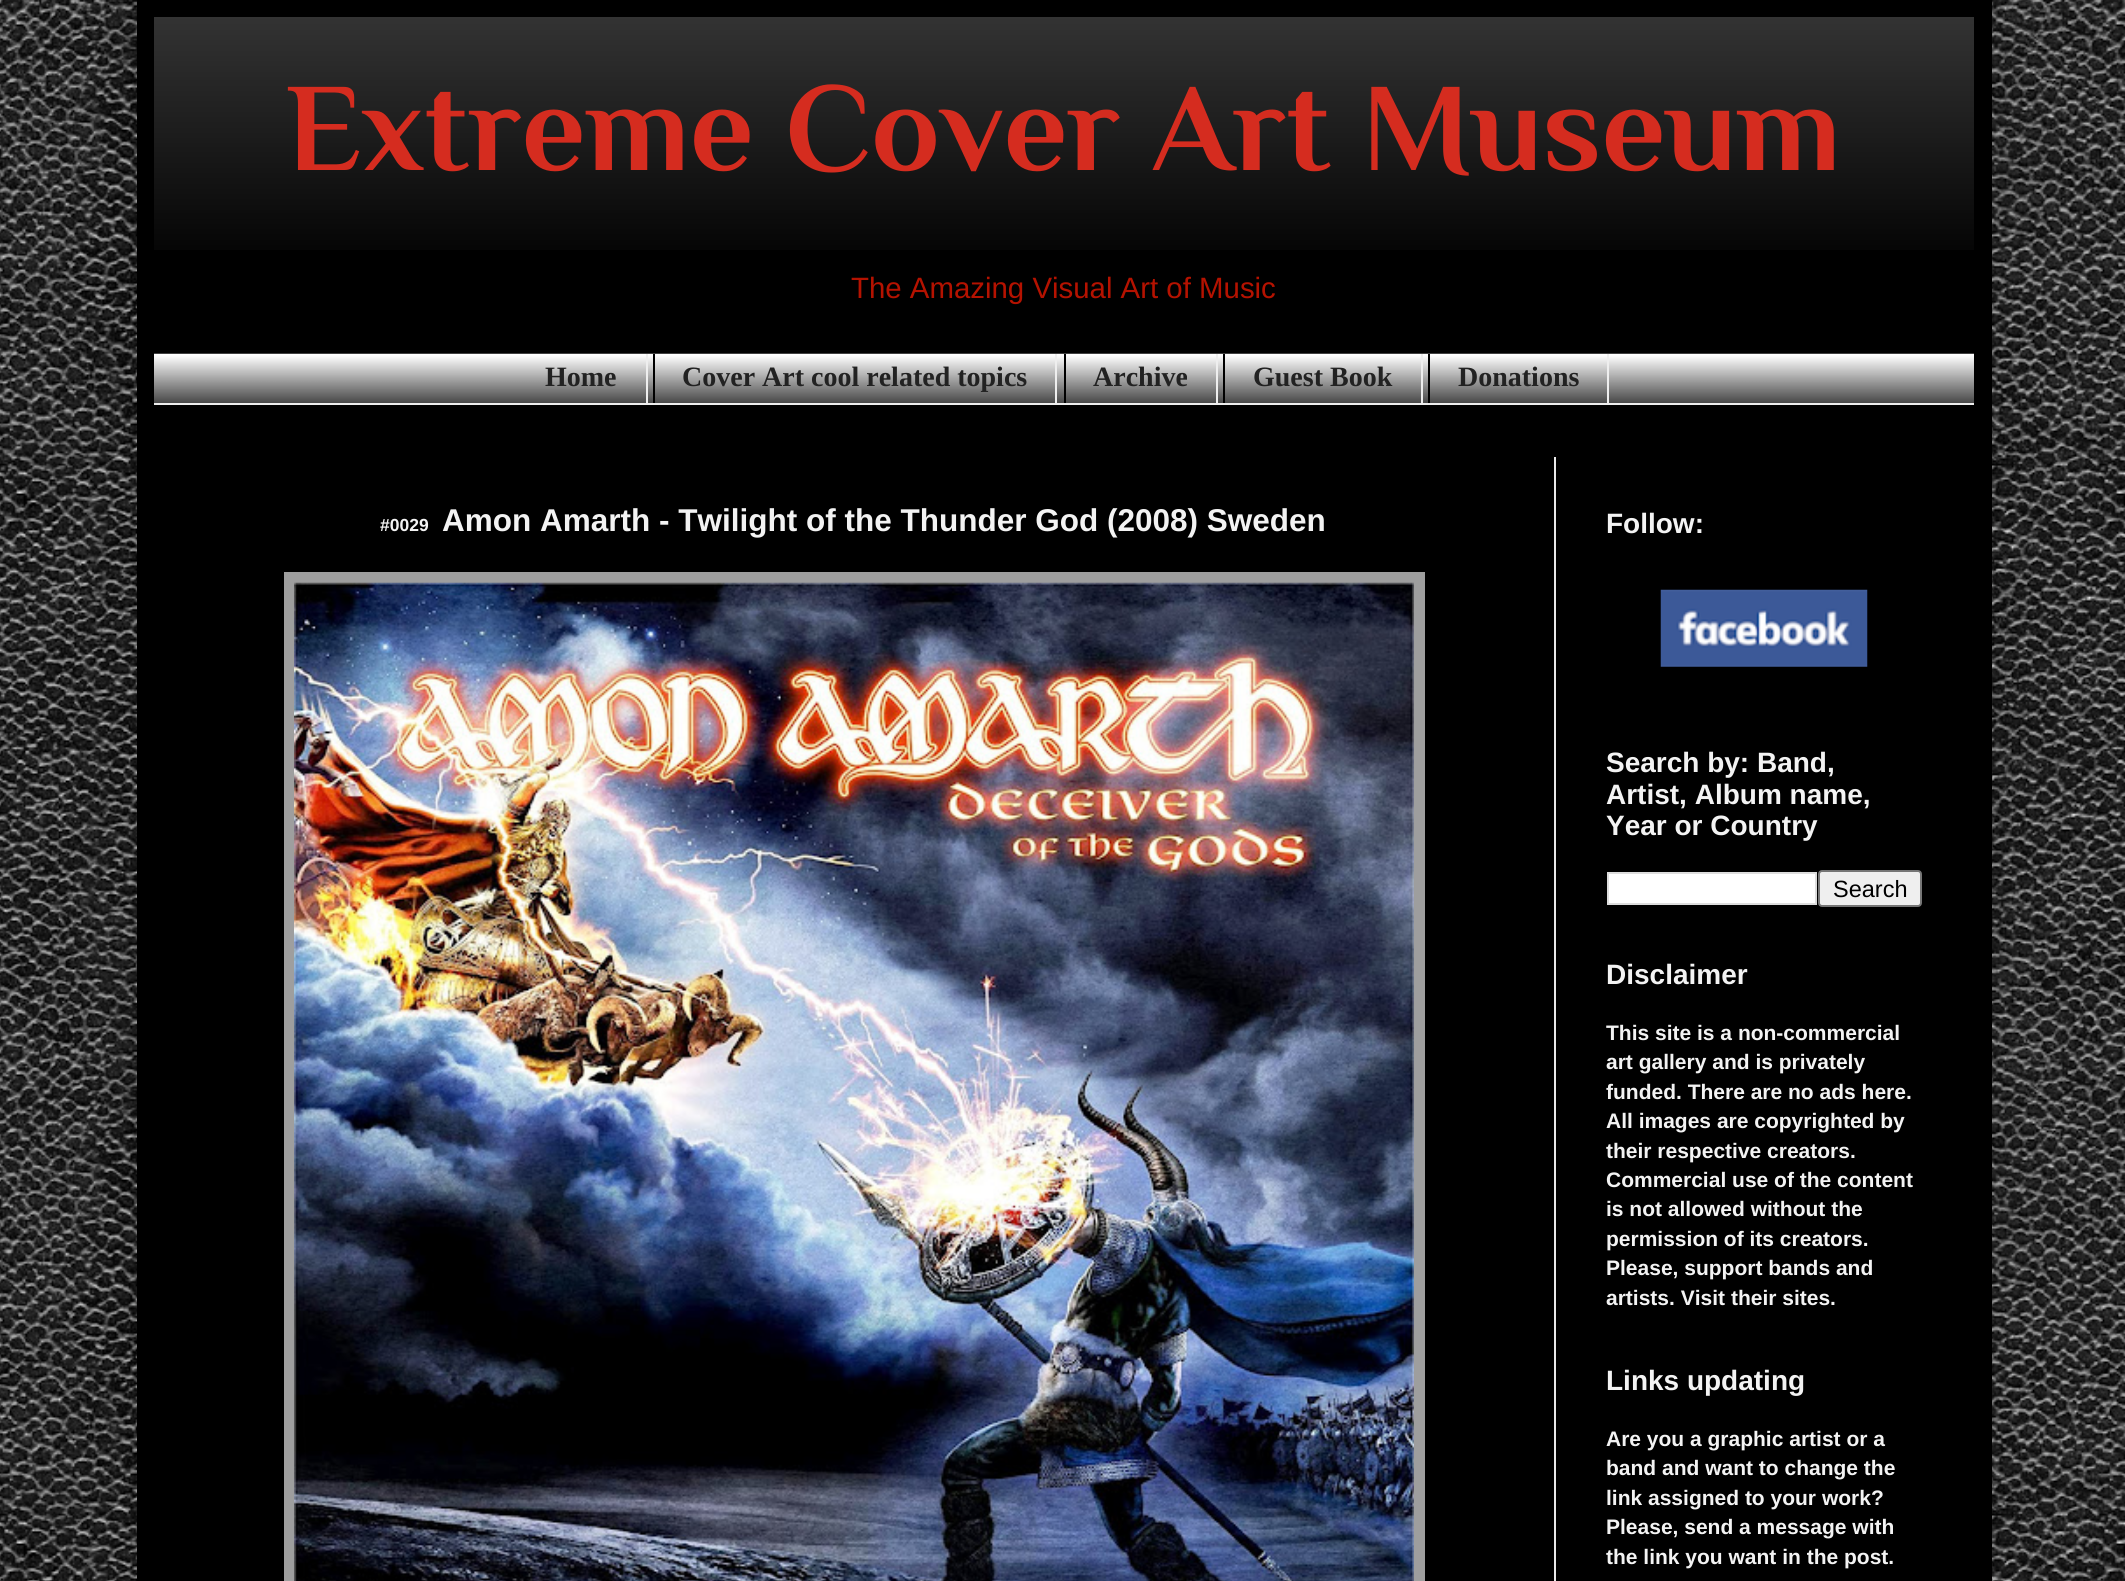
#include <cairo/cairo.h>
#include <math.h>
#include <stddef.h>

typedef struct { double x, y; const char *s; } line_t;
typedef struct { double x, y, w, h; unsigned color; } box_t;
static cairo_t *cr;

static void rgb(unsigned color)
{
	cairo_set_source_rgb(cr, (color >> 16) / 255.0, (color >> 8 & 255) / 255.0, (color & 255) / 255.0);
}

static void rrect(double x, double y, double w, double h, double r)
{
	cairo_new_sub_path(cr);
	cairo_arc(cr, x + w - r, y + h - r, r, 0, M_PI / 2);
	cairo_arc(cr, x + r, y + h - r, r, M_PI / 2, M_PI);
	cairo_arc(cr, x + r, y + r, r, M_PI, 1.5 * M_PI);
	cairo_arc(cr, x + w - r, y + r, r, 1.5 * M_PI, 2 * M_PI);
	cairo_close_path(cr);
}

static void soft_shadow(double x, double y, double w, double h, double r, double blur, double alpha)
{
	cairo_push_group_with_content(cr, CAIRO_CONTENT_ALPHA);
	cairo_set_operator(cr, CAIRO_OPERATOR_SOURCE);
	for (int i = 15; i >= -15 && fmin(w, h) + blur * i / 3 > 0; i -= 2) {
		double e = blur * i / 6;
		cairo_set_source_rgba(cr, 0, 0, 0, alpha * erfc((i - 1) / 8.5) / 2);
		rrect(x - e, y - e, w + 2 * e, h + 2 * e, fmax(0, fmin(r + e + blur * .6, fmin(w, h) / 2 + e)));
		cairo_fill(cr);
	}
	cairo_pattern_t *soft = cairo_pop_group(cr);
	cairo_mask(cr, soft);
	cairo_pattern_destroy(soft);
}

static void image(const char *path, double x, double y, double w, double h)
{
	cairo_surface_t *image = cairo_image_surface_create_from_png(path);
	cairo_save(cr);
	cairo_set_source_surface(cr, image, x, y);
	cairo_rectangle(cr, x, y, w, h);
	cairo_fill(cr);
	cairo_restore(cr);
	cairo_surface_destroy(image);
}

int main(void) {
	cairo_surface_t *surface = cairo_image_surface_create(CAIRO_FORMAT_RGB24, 2125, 1581);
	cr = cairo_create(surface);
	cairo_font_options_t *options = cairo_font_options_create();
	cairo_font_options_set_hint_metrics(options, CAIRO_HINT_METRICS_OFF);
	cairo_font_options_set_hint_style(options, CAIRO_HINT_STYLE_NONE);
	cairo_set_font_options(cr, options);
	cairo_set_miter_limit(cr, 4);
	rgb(0xffffff);
	cairo_paint(cr);
	image("img/1.png", 0, 700, 2125, 881);
	image("img/2.png", 0, 0, 2125, 700);
	rgb(0x000000);
	soft_shadow(137, 0, 1855, 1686, 0, 35, 0.15);
	rgb(0x000000);
	cairo_rectangle(cr, 137, 0, 1855, 1581);
	cairo_fill(cr);
	image("img/3.png", 154, 17, 1820, 233);
	image("img/4.png", 154, 353, 1820, 50);
	{
		static const box_t items[] = {
			{154, 403, 1820, 2, 0xeeeeee},
			{646, 354, 2, 49, 0xeeeeee},
			{1055, 354, 2, 49, 0xeeeeee},
			{653, 354, 2, 49, 0x000000},
			{1216, 354, 2, 49, 0xeeeeee},
			{1064, 354, 2, 49, 0x000000},
			{1421, 354, 2, 49, 0xeeeeee},
			{1223, 354, 2, 49, 0x000000},
			{1607, 354, 2, 49, 0xeeeeee},
			{1428, 354, 2, 49, 0x000000},
			{1554, 457, 2, 1124, 0xeaeaea},
			{284, 572, 1141, 1009, 0x9e9e9e},
		};
		for (size_t i = 0; i < sizeof items / sizeof *items; i++) {
			rgb(items[i].color);
			cairo_rectangle(cr, items[i].x, items[i].y, items[i].w, items[i].h);
			cairo_fill(cr);
		}
	}
	image("img/5.png", 294, 582, 1120, 999);
	image("img/6.png", 1660, 589, 208, 78);
	rgb(0xffffff);
	cairo_rectangle(cr, 1608, 873, 208, 31);
	cairo_fill_preserve(cr);
	rgb(0xdddddd);
	cairo_stroke(cr);
	rgb(0xefefef);
	rrect(1819, 871, 102, 35, 3);
	cairo_fill_preserve(cr);
	rgb(0x767676);
	cairo_stroke(cr);
	cairo_select_font_face(cr, "Philosopher", CAIRO_FONT_SLANT_NORMAL, CAIRO_FONT_WEIGHT_BOLD);
	cairo_set_font_size(cr, 126);
	rgb(0xd52c1f);
	cairo_move_to(cr, 286, 170);
	cairo_show_text(cr, "Extreme Cover Art Museum");
	cairo_select_font_face(cr, "Liberation Sans", CAIRO_FONT_SLANT_NORMAL, CAIRO_FONT_WEIGHT_NORMAL);
	cairo_set_font_size(cr, 29.4);
	rgb(0xb51200);
	cairo_move_to(cr, 851, 298);
	cairo_show_text(cr, "The Amazing Visual Art of Music");
	cairo_select_font_face(cr, "Liberation Serif", CAIRO_FONT_SLANT_NORMAL, CAIRO_FONT_WEIGHT_BOLD);
	cairo_set_font_size(cr, 28);
	rgb(0x222222);
	{
		static const line_t items[] = {
			{545, 386, "Home"},
			{682, 386, "Cover Art cool related topics"},
			{1093, 386, "Archive"},
			{1253, 386, "Guest Book"},
			{1458, 386, "Donations"},
		};
		for (size_t i = 0; i < sizeof items / sizeof *items; i++) {
			cairo_move_to(cr, items[i].x, items[i].y);
			cairo_show_text(cr, items[i].s);
		}
	}
	cairo_select_font_face(cr, "Liberation Sans", CAIRO_FONT_SLANT_NORMAL, CAIRO_FONT_WEIGHT_BOLD);
	cairo_set_font_size(cr, 17.5);
	rgb(0xf3f3f3);
	cairo_move_to(cr, 380, 531);
	cairo_show_text(cr, "#0029");
	cairo_set_font_size(cr, 31.5);
	cairo_move_to(cr, 442, 531);
	cairo_show_text(cr, "Amon Amarth - Twilight of the Thunder God (2008) Sweden");
	cairo_set_font_size(cr, 28);
	{
		static const line_t items[] = {
			{1606, 533, "Follow:"},
			{1606, 772, "Search by: Band,"},
			{1606, 804, "Artist, Album name,"},
			{1606, 835, "Year or Country"},
		};
		for (size_t i = 0; i < sizeof items / sizeof *items; i++) {
			cairo_move_to(cr, items[i].x, items[i].y);
			cairo_show_text(cr, items[i].s);
		}
	}
	cairo_select_font_face(cr, "Liberation Sans", CAIRO_FONT_SLANT_NORMAL, CAIRO_FONT_WEIGHT_NORMAL);
	cairo_set_font_size(cr, 23.5);
	rgb(0x000000);
	cairo_move_to(cr, 1833, 897);
	cairo_show_text(cr, "Search");
	cairo_select_font_face(cr, "Liberation Sans", CAIRO_FONT_SLANT_NORMAL, CAIRO_FONT_WEIGHT_BOLD);
	cairo_set_font_size(cr, 28);
	rgb(0xf3f3f3);
	cairo_move_to(cr, 1606, 984);
	cairo_show_text(cr, "Disclaimer");
	cairo_set_font_size(cr, 21);
	{
		static const line_t items[] = {
			{1606, 1040, "This site is a non-commercial"},
			{1606, 1069, "art gallery and is privately"},
			{1606, 1099, "funded. There are no ads here."},
			{1606, 1128, "All images are copyrighted by"},
			{1606, 1158, "their respective creators."},
			{1606, 1187, "Commercial use of the content"},
			{1606, 1216, "is not allowed without the"},
			{1606, 1246, "permission of its creators."},
			{1606, 1275, "Please, support bands and"},
			{1606, 1305, "artists. Visit their sites."},
		};
		for (size_t i = 0; i < sizeof items / sizeof *items; i++) {
			cairo_move_to(cr, items[i].x, items[i].y);
			cairo_show_text(cr, items[i].s);
		}
	}
	cairo_set_font_size(cr, 28);
	cairo_move_to(cr, 1606, 1390);
	cairo_show_text(cr, "Links updating");
	cairo_set_font_size(cr, 21);
	{
		static const line_t items[] = {
			{1606, 1446, "Are you a graphic artist or a"},
			{1606, 1475, "band and want to change the"},
			{1606, 1505, "link assigned to your work?"},
			{1606, 1534, "Please, send a message with"},
			{1606, 1564, "the link you want in the post."},
		};
		for (size_t i = 0; i < sizeof items / sizeof *items; i++) {
			cairo_move_to(cr, items[i].x, items[i].y);
			cairo_show_text(cr, items[i].s);
		}
	}
	cairo_surface_write_to_png(surface, "page.png");
	cairo_font_options_destroy(options);
	cairo_destroy(cr);
	cairo_surface_destroy(surface);
	return 0;
}
